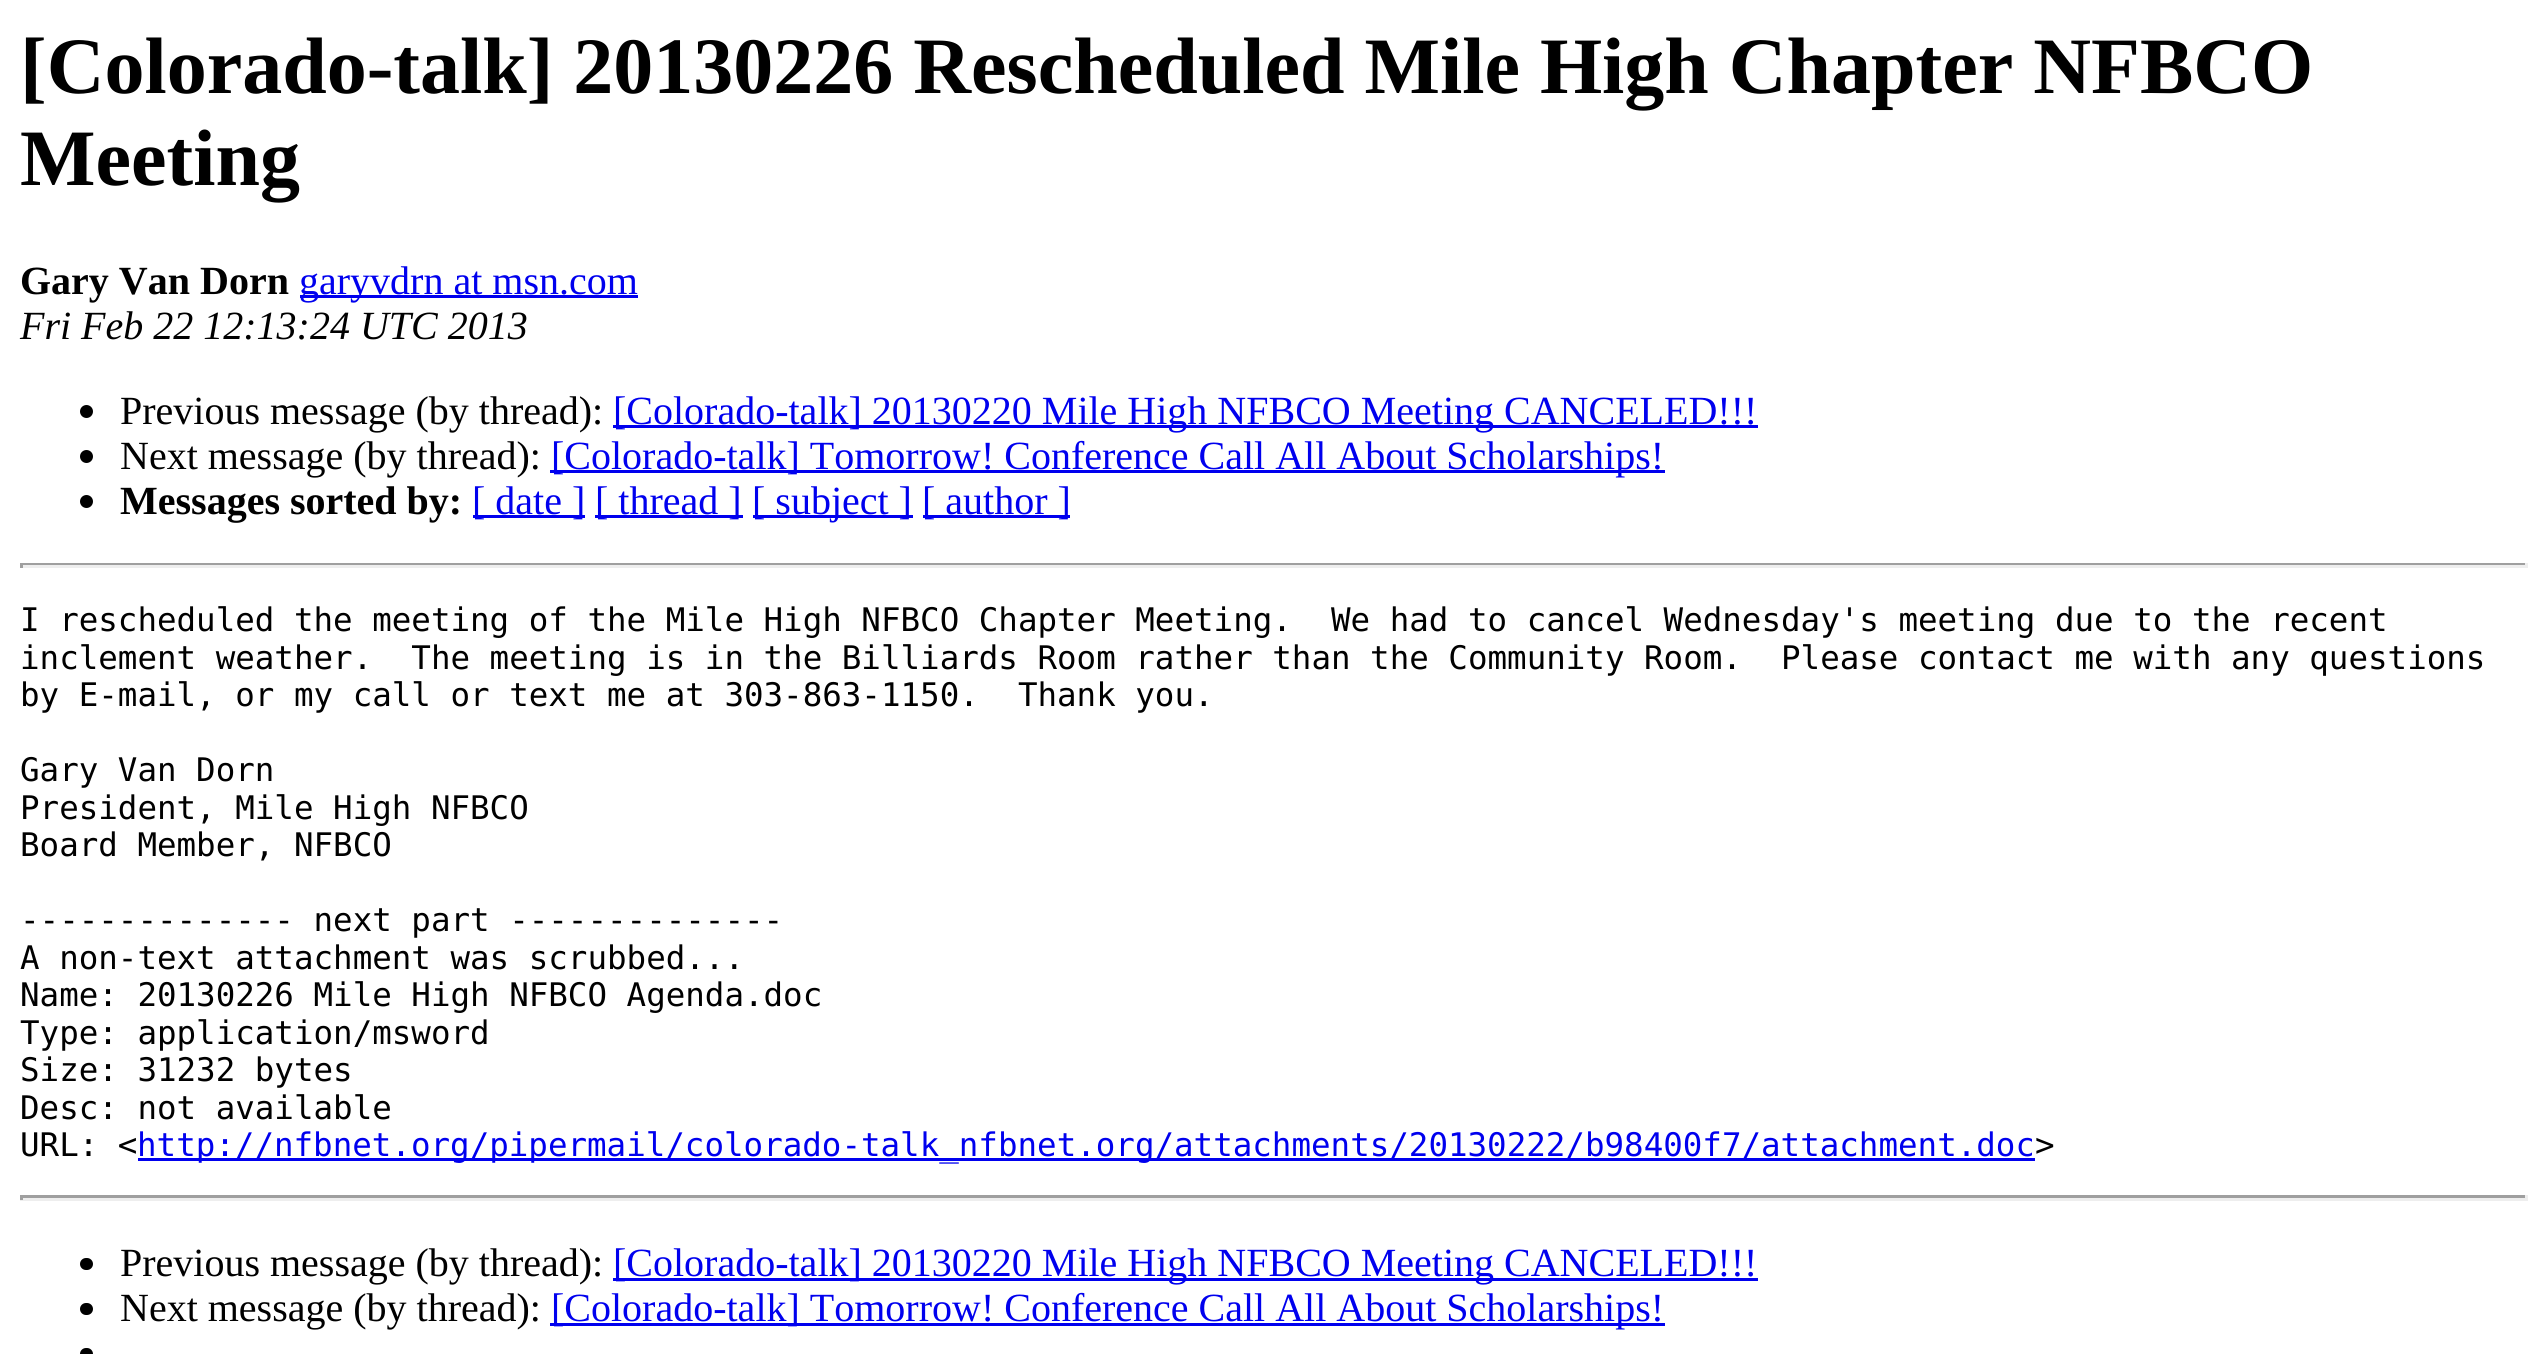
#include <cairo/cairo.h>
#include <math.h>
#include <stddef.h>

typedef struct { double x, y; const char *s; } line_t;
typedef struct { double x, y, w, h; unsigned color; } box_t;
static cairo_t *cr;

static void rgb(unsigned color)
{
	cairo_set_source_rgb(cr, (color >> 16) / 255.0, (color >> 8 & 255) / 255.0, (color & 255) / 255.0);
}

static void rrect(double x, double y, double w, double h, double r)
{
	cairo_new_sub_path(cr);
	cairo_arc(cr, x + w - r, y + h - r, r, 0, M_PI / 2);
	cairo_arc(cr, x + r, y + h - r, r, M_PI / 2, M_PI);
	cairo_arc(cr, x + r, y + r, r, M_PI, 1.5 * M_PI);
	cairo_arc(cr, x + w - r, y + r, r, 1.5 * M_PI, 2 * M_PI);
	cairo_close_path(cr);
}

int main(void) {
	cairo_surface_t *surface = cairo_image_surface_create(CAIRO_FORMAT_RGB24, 2546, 1354);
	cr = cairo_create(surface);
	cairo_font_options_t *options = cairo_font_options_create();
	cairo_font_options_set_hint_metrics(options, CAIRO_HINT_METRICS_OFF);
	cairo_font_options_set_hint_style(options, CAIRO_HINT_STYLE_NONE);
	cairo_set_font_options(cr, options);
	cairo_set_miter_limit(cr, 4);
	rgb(0xffffff);
	cairo_paint(cr);
	rgb(0x0000ee);
	cairo_rectangle(cr, 300, 295, 338, 3);
	cairo_fill(cr);
	rgb(0x000000);
	cairo_arc(cr, 86.5, 411.5, 6.5, 0, 2 * M_PI);
	cairo_fill(cr);
	rgb(0x0000ee);
	cairo_rectangle(cr, 613, 425, 1145, 3);
	cairo_fill(cr);
	rgb(0x000000);
	cairo_arc(cr, 86.5, 456.5, 6.5, 0, 2 * M_PI);
	cairo_fill(cr);
	rgb(0x0000ee);
	cairo_rectangle(cr, 550, 470, 1115, 3);
	cairo_fill(cr);
	rgb(0x000000);
	cairo_arc(cr, 86.5, 501.5, 6.5, 0, 2 * M_PI);
	cairo_fill(cr);
	{
		static const box_t items[] = {
			{473, 515, 112, 3, 0x0000ee},
			{595, 515, 148, 3, 0x0000ee},
			{753, 515, 160, 3, 0x0000ee},
			{923, 515, 147, 3, 0x0000ee},
			{20, 563, 2508, 2, 0x9f9f9f},
			{2525, 563, 3, 5, 0xeeeeee},
			{20, 565, 2508, 3, 0xeeeeee},
			{20, 563, 3, 5, 0x9f9f9f},
			{138, 1158, 1897, 3, 0x0000ee},
			{20, 1195, 2508, 3, 0x9f9f9f},
			{2525, 1195, 3, 5, 0xeeeeee},
			{20, 1198, 2508, 3, 0xeeeeee},
			{20, 1195, 3, 5, 0x9f9f9f},
		};
		for (size_t i = 0; i < sizeof items / sizeof *items; i++) {
			rgb(items[i].color);
			cairo_rectangle(cr, items[i].x, items[i].y, items[i].w, items[i].h);
			cairo_fill(cr);
		}
	}
	rgb(0x000000);
	rrect(80, 1258, 13, 12, 6);
	cairo_fill(cr);
	rgb(0x0000ee);
	cairo_rectangle(cr, 613, 1278, 1145, 3);
	cairo_fill(cr);
	rgb(0x000000);
	rrect(80, 1303, 13, 12, 6);
	cairo_fill(cr);
	rgb(0x0000ee);
	cairo_rectangle(cr, 550, 1323, 1115, 3);
	cairo_fill(cr);
	rgb(0x000000);
	rrect(80, 1348, 13, 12, 6);
	cairo_fill(cr);
	cairo_select_font_face(cr, "Liberation Serif", CAIRO_FONT_SLANT_NORMAL, CAIRO_FONT_WEIGHT_BOLD);
	cairo_set_font_size(cr, 80);
	cairo_move_to(cr, 20, 93);
	cairo_show_text(cr, "[Colorado-talk] 20130226 Rescheduled Mile High Chapter NFBCO");
	cairo_move_to(cr, 20, 185);
	cairo_show_text(cr, "Meeting");
	cairo_set_font_size(cr, 40);
	cairo_move_to(cr, 20, 294);
	cairo_show_text(cr, "Gary Van Dorn");
	cairo_select_font_face(cr, "Liberation Serif", CAIRO_FONT_SLANT_NORMAL, CAIRO_FONT_WEIGHT_NORMAL);
	rgb(0x0000ee);
	cairo_move_to(cr, 299, 294);
	cairo_show_text(cr, "garyvdrn at msn.com");
	cairo_select_font_face(cr, "Liberation Serif", CAIRO_FONT_SLANT_ITALIC, CAIRO_FONT_WEIGHT_NORMAL);
	rgb(0x000000);
	cairo_move_to(cr, 20, 339);
	cairo_show_text(cr, "Fri Feb 22 12:13:24 UTC 2013");
	cairo_select_font_face(cr, "Liberation Serif", CAIRO_FONT_SLANT_NORMAL, CAIRO_FONT_WEIGHT_NORMAL);
	cairo_move_to(cr, 120, 424);
	cairo_show_text(cr, "Previous message (by thread):");
	rgb(0x0000ee);
	cairo_move_to(cr, 613, 424);
	cairo_show_text(cr, "[Colorado-talk] 20130220 Mile High NFBCO Meeting CANCELED!!!");
	rgb(0x000000);
	cairo_move_to(cr, 120, 469);
	cairo_show_text(cr, "Next message (by thread):");
	rgb(0x0000ee);
	cairo_move_to(cr, 551, 469);
	cairo_show_text(cr, "[Colorado-talk] Tomorrow! Conference Call All About Scholarships!");
	cairo_select_font_face(cr, "Liberation Serif", CAIRO_FONT_SLANT_NORMAL, CAIRO_FONT_WEIGHT_BOLD);
	rgb(0x000000);
	cairo_move_to(cr, 120, 514);
	cairo_show_text(cr, "Messages sorted by:");
	cairo_select_font_face(cr, "Liberation Serif", CAIRO_FONT_SLANT_NORMAL, CAIRO_FONT_WEIGHT_NORMAL);
	rgb(0x0000ee);
	{
		static const line_t items[] = {
			{472, 514, "[ date ]"},
			{595, 514, "[ thread ]"},
			{752, 514, "[ subject ]"},
			{922, 514, "[ author ]"},
		};
		for (size_t i = 0; i < sizeof items / sizeof *items; i++) {
			cairo_move_to(cr, items[i].x, items[i].y);
			cairo_show_text(cr, items[i].s);
		}
	}
	cairo_select_font_face(cr, "DejaVu Sans Mono", CAIRO_FONT_SLANT_NORMAL, CAIRO_FONT_WEIGHT_NORMAL);
	cairo_set_font_size(cr, 32.5);
	rgb(0x000000);
	{
		static const line_t items[] = {
			{20, 631, "I rescheduled the meeting of the Mile High NFBCO Chapter Meeting.  We had to cancel Wednesday's meeting due to the recent"},
			{20, 669, "inclement weather.  The meeting is in the Billiards Room rather than the Community Room.  Please contact me with any questions"},
			{20, 706, "by E-mail, or my call or text me at 303-863-1150.  Thank you."},
			{20, 781, "Gary Van Dorn"},
			{20, 819, "President, Mile High NFBCO"},
			{20, 856, "Board Member, NFBCO"},
			{20, 931, "-------------- next part --------------"},
			{20, 969, "A non-text attachment was scrubbed..."},
			{20, 1006, "Name: 20130226 Mile High NFBCO Agenda.doc"},
			{20, 1044, "Type: application/msword"},
			{20, 1081, "Size: 31232 bytes"},
			{20, 1119, "Desc: not available"},
			{20, 1156, "URL: <"},
		};
		for (size_t i = 0; i < sizeof items / sizeof *items; i++) {
			cairo_move_to(cr, items[i].x, items[i].y);
			cairo_show_text(cr, items[i].s);
		}
	}
	rgb(0x0000ee);
	cairo_move_to(cr, 137, 1156);
	cairo_show_text(cr, "http://nfbnet.org/pipermail/colorado-talk_nfbnet.org/attachments/20130222/b98400f7/attachment.doc");
	rgb(0x000000);
	cairo_move_to(cr, 2035, 1156);
	cairo_show_text(cr, ">");
	cairo_select_font_face(cr, "Liberation Serif", CAIRO_FONT_SLANT_NORMAL, CAIRO_FONT_WEIGHT_NORMAL);
	cairo_set_font_size(cr, 40);
	cairo_move_to(cr, 120, 1276);
	cairo_show_text(cr, "Previous message (by thread):");
	rgb(0x0000ee);
	cairo_move_to(cr, 613, 1276);
	cairo_show_text(cr, "[Colorado-talk] 20130220 Mile High NFBCO Meeting CANCELED!!!");
	rgb(0x000000);
	cairo_move_to(cr, 120, 1321);
	cairo_show_text(cr, "Next message (by thread):");
	rgb(0x0000ee);
	cairo_move_to(cr, 551, 1321);
	cairo_show_text(cr, "[Colorado-talk] Tomorrow! Conference Call All About Scholarships!");
	cairo_surface_write_to_png(surface, "page.png");
	cairo_font_options_destroy(options);
	cairo_destroy(cr);
	cairo_surface_destroy(surface);
	return 0;
}
